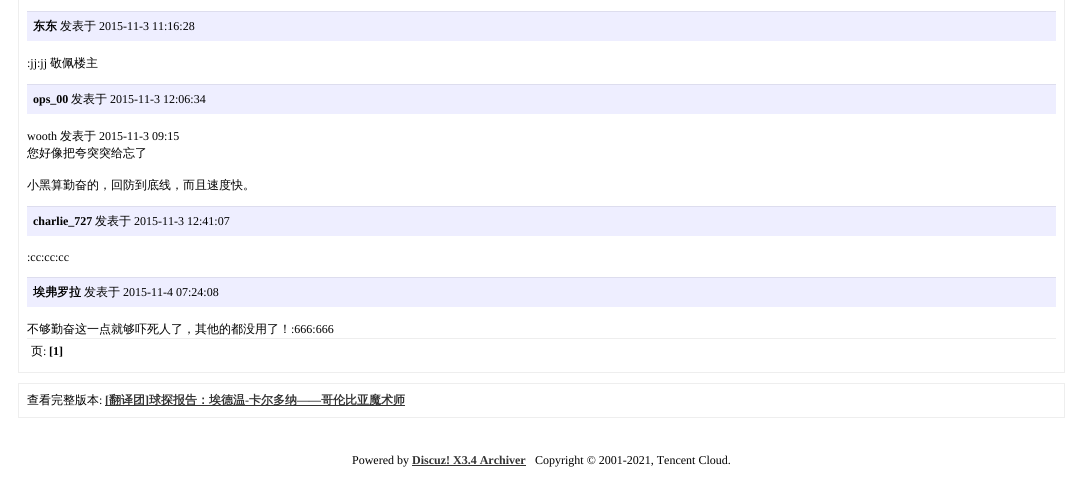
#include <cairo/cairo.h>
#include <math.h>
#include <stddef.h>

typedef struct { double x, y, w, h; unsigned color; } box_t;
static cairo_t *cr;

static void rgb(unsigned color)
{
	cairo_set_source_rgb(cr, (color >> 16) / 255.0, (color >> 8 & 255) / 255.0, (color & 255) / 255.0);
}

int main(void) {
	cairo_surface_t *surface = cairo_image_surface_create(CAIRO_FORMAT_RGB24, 1083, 483);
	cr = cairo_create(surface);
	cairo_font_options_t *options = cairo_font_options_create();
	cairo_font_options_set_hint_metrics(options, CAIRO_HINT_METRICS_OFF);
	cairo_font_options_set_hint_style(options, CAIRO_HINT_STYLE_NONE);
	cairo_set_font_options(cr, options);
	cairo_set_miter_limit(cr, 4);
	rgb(0xffffff);
	cairo_paint(cr);
	cairo_rectangle(cr, 18.5, -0.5, 1046, 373);
	rgb(0xeeeeee);
	cairo_set_line_width(cr, 1);
	cairo_stroke(cr);
	{
		static const box_t items[] = {
			{27, 12, 1029, 29, 0xeeeeff},
			{27, 11, 1029, 1, 0xddddee},
			{27, 85, 1029, 29, 0xeeeeff},
			{27, 84, 1029, 1, 0xddddee},
			{27, 207, 1029, 29, 0xeeeeff},
			{27, 206, 1029, 1, 0xddddee},
			{27, 278, 1029, 29, 0xeeeeff},
			{27, 277, 1029, 1, 0xddddee},
			{27, 338, 1029, 1, 0xeeeeee},
		};
		for (size_t i = 0; i < sizeof items / sizeof *items; i++) {
			rgb(items[i].color);
			cairo_rectangle(cr, items[i].x, items[i].y, items[i].w, items[i].h);
			cairo_fill(cr);
		}
	}
	cairo_rectangle(cr, 18.5, 383.5, 1046, 34);
	cairo_stroke(cr);
	rgb(0x333333);
	cairo_rectangle(cr, 105, 405, 300, 1);
	cairo_fill(cr);
	cairo_rectangle(cr, 412, 465, 114, 1);
	cairo_fill(cr);
	cairo_select_font_face(cr, "WenQuanYi Zen Hei", CAIRO_FONT_SLANT_NORMAL, CAIRO_FONT_WEIGHT_BOLD);
	cairo_set_font_size(cr, 12);
	rgb(0x000000);
	cairo_move_to(cr, 33, 30);
	cairo_show_text(cr, "东东");
	cairo_select_font_face(cr, "WenQuanYi Zen Hei Medium", CAIRO_FONT_SLANT_NORMAL, CAIRO_FONT_WEIGHT_NORMAL);
	cairo_move_to(cr, 60, 30);
	cairo_show_text(cr, "发表于");
	cairo_select_font_face(cr, "Liberation Serif", CAIRO_FONT_SLANT_NORMAL, CAIRO_FONT_WEIGHT_NORMAL);
	cairo_move_to(cr, 99, 30);
	cairo_show_text(cr, "2015-11-3 11:16:28");
	cairo_move_to(cr, 27, 67);
	cairo_show_text(cr, ":jj:jj");
	cairo_select_font_face(cr, "WenQuanYi Zen Hei Medium", CAIRO_FONT_SLANT_NORMAL, CAIRO_FONT_WEIGHT_NORMAL);
	cairo_move_to(cr, 50, 67);
	cairo_show_text(cr, "敬佩楼主");
	cairo_select_font_face(cr, "Liberation Serif", CAIRO_FONT_SLANT_NORMAL, CAIRO_FONT_WEIGHT_BOLD);
	cairo_move_to(cr, 33, 103);
	cairo_show_text(cr, "ops_00");
	cairo_select_font_face(cr, "WenQuanYi Zen Hei Medium", CAIRO_FONT_SLANT_NORMAL, CAIRO_FONT_WEIGHT_NORMAL);
	cairo_move_to(cr, 71, 103);
	cairo_show_text(cr, "发表于");
	cairo_select_font_face(cr, "Liberation Serif", CAIRO_FONT_SLANT_NORMAL, CAIRO_FONT_WEIGHT_NORMAL);
	cairo_move_to(cr, 110, 103);
	cairo_show_text(cr, "2015-11-3 12:06:34");
	cairo_move_to(cr, 27, 140);
	cairo_show_text(cr, "wooth");
	cairo_select_font_face(cr, "WenQuanYi Zen Hei Medium", CAIRO_FONT_SLANT_NORMAL, CAIRO_FONT_WEIGHT_NORMAL);
	cairo_move_to(cr, 60, 140);
	cairo_show_text(cr, "发表于");
	cairo_select_font_face(cr, "Liberation Serif", CAIRO_FONT_SLANT_NORMAL, CAIRO_FONT_WEIGHT_NORMAL);
	cairo_move_to(cr, 99, 140);
	cairo_show_text(cr, "2015-11-3 09:15");
	cairo_select_font_face(cr, "WenQuanYi Zen Hei Medium", CAIRO_FONT_SLANT_NORMAL, CAIRO_FONT_WEIGHT_NORMAL);
	cairo_move_to(cr, 27, 157);
	cairo_show_text(cr, "您好像把夸突突给忘了");
	cairo_move_to(cr, 27, 189);
	cairo_show_text(cr, "小黑算勤奋的，回防到底线，而且速度快。");
	cairo_select_font_face(cr, "Liberation Serif", CAIRO_FONT_SLANT_NORMAL, CAIRO_FONT_WEIGHT_BOLD);
	cairo_move_to(cr, 33, 225);
	cairo_show_text(cr, "charlie_727");
	cairo_select_font_face(cr, "WenQuanYi Zen Hei Medium", CAIRO_FONT_SLANT_NORMAL, CAIRO_FONT_WEIGHT_NORMAL);
	cairo_move_to(cr, 95, 225);
	cairo_show_text(cr, "发表于");
	cairo_select_font_face(cr, "Liberation Serif", CAIRO_FONT_SLANT_NORMAL, CAIRO_FONT_WEIGHT_NORMAL);
	cairo_move_to(cr, 134, 225);
	cairo_show_text(cr, "2015-11-3 12:41:07");
	cairo_move_to(cr, 27, 261);
	cairo_show_text(cr, ":cc:cc:cc");
	cairo_select_font_face(cr, "WenQuanYi Zen Hei", CAIRO_FONT_SLANT_NORMAL, CAIRO_FONT_WEIGHT_BOLD);
	cairo_move_to(cr, 33, 296);
	cairo_show_text(cr, "埃弗罗拉");
	cairo_select_font_face(cr, "WenQuanYi Zen Hei Medium", CAIRO_FONT_SLANT_NORMAL, CAIRO_FONT_WEIGHT_NORMAL);
	cairo_move_to(cr, 84, 296);
	cairo_show_text(cr, "发表于");
	cairo_select_font_face(cr, "Liberation Serif", CAIRO_FONT_SLANT_NORMAL, CAIRO_FONT_WEIGHT_NORMAL);
	cairo_move_to(cr, 123, 296);
	cairo_show_text(cr, "2015-11-4 07:24:08");
	cairo_select_font_face(cr, "WenQuanYi Zen Hei Medium", CAIRO_FONT_SLANT_NORMAL, CAIRO_FONT_WEIGHT_NORMAL);
	cairo_move_to(cr, 27, 333);
	cairo_show_text(cr, "不够勤奋这一点就够吓死人了，其他的都没用了！");
	cairo_select_font_face(cr, "Liberation Serif", CAIRO_FONT_SLANT_NORMAL, CAIRO_FONT_WEIGHT_NORMAL);
	cairo_move_to(cr, 291, 333);
	cairo_show_text(cr, ":666:666");
	cairo_select_font_face(cr, "WenQuanYi Zen Hei Medium", CAIRO_FONT_SLANT_NORMAL, CAIRO_FONT_WEIGHT_NORMAL);
	cairo_move_to(cr, 31, 355);
	cairo_show_text(cr, "页");
	cairo_select_font_face(cr, "Liberation Serif", CAIRO_FONT_SLANT_NORMAL, CAIRO_FONT_WEIGHT_NORMAL);
	cairo_move_to(cr, 43, 355);
	cairo_show_text(cr, ":");
	cairo_select_font_face(cr, "Liberation Serif", CAIRO_FONT_SLANT_NORMAL, CAIRO_FONT_WEIGHT_BOLD);
	cairo_move_to(cr, 49, 355);
	cairo_show_text(cr, "[1]");
	cairo_select_font_face(cr, "WenQuanYi Zen Hei Medium", CAIRO_FONT_SLANT_NORMAL, CAIRO_FONT_WEIGHT_NORMAL);
	cairo_move_to(cr, 27, 404);
	cairo_show_text(cr, "查看完整版本");
	cairo_select_font_face(cr, "Liberation Serif", CAIRO_FONT_SLANT_NORMAL, CAIRO_FONT_WEIGHT_NORMAL);
	cairo_move_to(cr, 99, 404);
	cairo_show_text(cr, ":");
	cairo_select_font_face(cr, "Liberation Serif", CAIRO_FONT_SLANT_NORMAL, CAIRO_FONT_WEIGHT_BOLD);
	rgb(0x333333);
	cairo_move_to(cr, 105, 404);
	cairo_show_text(cr, "[");
	cairo_select_font_face(cr, "WenQuanYi Zen Hei", CAIRO_FONT_SLANT_NORMAL, CAIRO_FONT_WEIGHT_BOLD);
	cairo_move_to(cr, 109, 404);
	cairo_show_text(cr, "翻译团");
	cairo_select_font_face(cr, "Liberation Serif", CAIRO_FONT_SLANT_NORMAL, CAIRO_FONT_WEIGHT_BOLD);
	cairo_move_to(cr, 145, 404);
	cairo_show_text(cr, "]");
	cairo_select_font_face(cr, "WenQuanYi Zen Hei", CAIRO_FONT_SLANT_NORMAL, CAIRO_FONT_WEIGHT_BOLD);
	cairo_move_to(cr, 149, 404);
	cairo_show_text(cr, "球探报告：埃德温");
	cairo_select_font_face(cr, "Liberation Serif", CAIRO_FONT_SLANT_NORMAL, CAIRO_FONT_WEIGHT_BOLD);
	cairo_move_to(cr, 245, 404);
	cairo_show_text(cr, "-");
	cairo_select_font_face(cr, "WenQuanYi Zen Hei", CAIRO_FONT_SLANT_NORMAL, CAIRO_FONT_WEIGHT_BOLD);
	cairo_move_to(cr, 249, 404);
	cairo_show_text(cr, "卡尔多纳");
	cairo_select_font_face(cr, "Liberation Serif", CAIRO_FONT_SLANT_NORMAL, CAIRO_FONT_WEIGHT_BOLD);
	cairo_move_to(cr, 297, 404);
	cairo_show_text(cr, "——");
	cairo_select_font_face(cr, "WenQuanYi Zen Hei", CAIRO_FONT_SLANT_NORMAL, CAIRO_FONT_WEIGHT_BOLD);
	cairo_move_to(cr, 321, 404);
	cairo_show_text(cr, "哥伦比亚魔术师");
	cairo_select_font_face(cr, "Liberation Serif", CAIRO_FONT_SLANT_NORMAL, CAIRO_FONT_WEIGHT_NORMAL);
	rgb(0x000000);
	cairo_move_to(cr, 352, 464);
	cairo_show_text(cr, "Powered by");
	cairo_select_font_face(cr, "Liberation Serif", CAIRO_FONT_SLANT_NORMAL, CAIRO_FONT_WEIGHT_BOLD);
	rgb(0x333333);
	cairo_move_to(cr, 412, 464);
	cairo_show_text(cr, "Discuz! X3.4 Archiver");
	cairo_select_font_face(cr, "Liberation Serif", CAIRO_FONT_SLANT_NORMAL, CAIRO_FONT_WEIGHT_NORMAL);
	rgb(0x000000);
	cairo_move_to(cr, 535, 464);
	cairo_show_text(cr, "Copyright © 2001-2021, Tencent Cloud.");
	cairo_surface_write_to_png(surface, "page.png");
	cairo_font_options_destroy(options);
	cairo_destroy(cr);
	cairo_surface_destroy(surface);
	return 0;
}
